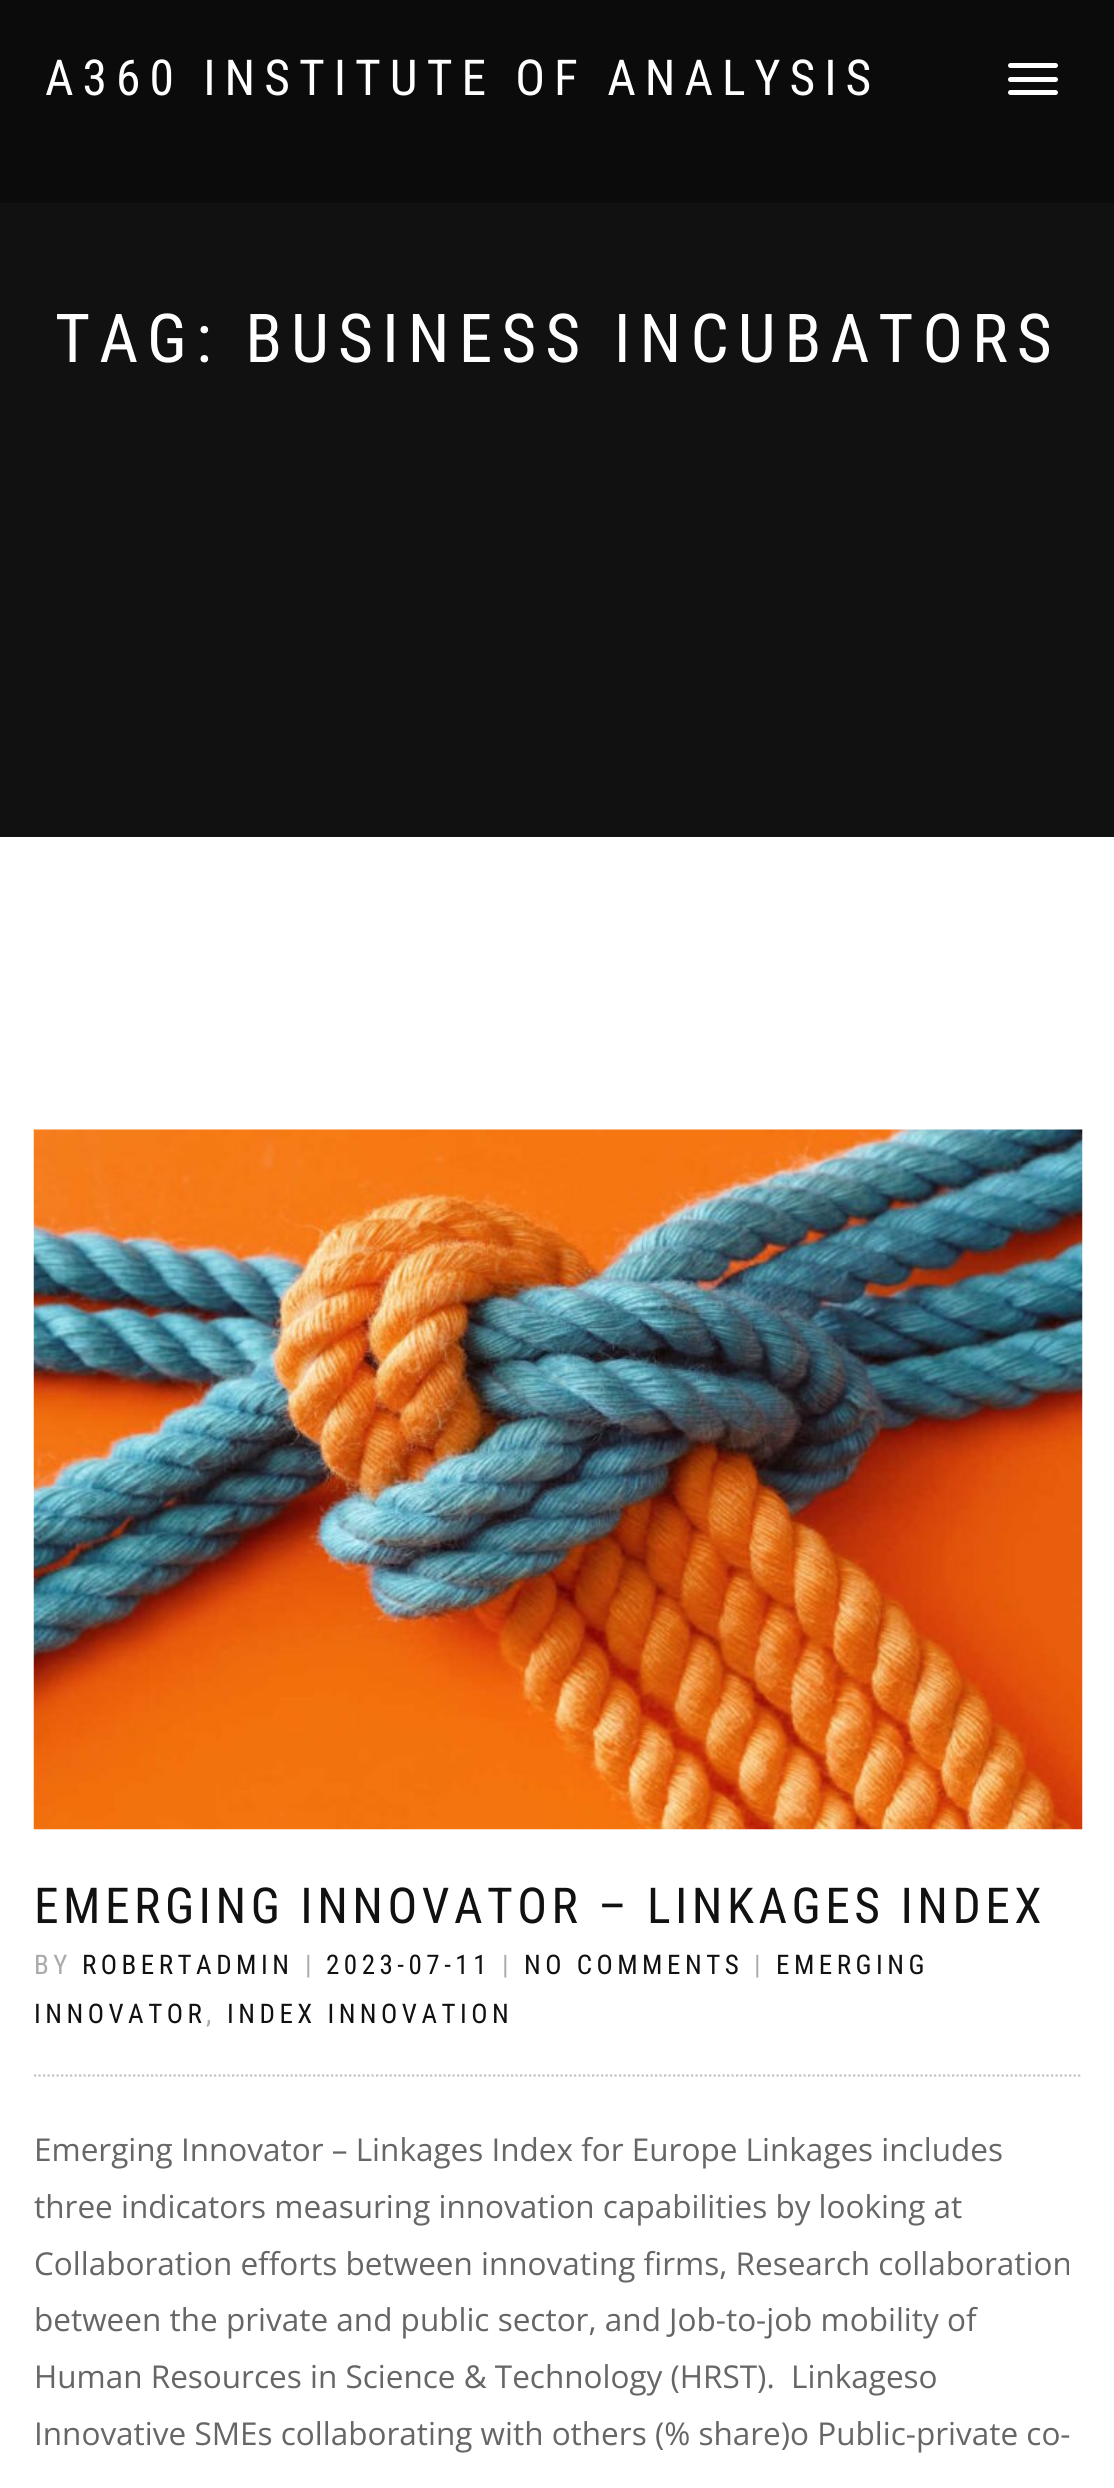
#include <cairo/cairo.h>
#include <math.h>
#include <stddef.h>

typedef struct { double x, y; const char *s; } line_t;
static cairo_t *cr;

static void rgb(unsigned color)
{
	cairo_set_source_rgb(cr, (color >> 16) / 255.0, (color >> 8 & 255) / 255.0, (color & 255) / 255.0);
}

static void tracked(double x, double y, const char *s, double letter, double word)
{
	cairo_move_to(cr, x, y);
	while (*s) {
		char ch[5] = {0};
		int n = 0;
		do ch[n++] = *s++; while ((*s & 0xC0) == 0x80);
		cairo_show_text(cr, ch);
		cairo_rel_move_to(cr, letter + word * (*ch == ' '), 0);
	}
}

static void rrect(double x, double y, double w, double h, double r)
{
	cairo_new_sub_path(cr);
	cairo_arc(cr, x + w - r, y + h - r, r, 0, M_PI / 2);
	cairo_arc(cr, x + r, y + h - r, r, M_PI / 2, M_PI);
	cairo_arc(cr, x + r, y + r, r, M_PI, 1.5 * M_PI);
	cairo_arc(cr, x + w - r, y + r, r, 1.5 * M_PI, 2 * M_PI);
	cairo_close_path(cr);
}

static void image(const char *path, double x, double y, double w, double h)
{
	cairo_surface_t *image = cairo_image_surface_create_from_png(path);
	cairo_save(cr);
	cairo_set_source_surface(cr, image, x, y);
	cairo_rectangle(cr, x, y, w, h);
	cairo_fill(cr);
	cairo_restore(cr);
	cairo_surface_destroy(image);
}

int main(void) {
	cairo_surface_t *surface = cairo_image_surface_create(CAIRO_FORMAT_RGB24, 1114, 2488);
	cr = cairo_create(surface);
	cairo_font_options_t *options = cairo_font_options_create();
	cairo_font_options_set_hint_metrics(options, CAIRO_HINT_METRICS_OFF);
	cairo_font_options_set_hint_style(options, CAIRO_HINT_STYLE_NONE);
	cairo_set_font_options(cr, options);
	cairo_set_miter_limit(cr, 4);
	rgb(0xffffff);
	cairo_paint(cr);
	rgb(0x0b0b0b);
	cairo_rectangle(cr, 0, 0, 1114, 203);
	cairo_fill(cr);
	rgb(0xffffff);
	rrect(1008, 63, 50, 5, 2.5);
	cairo_fill(cr);
	rrect(1008, 77, 50, 5, 2.5);
	cairo_fill(cr);
	rrect(1008, 90, 50, 5, 2.5);
	cairo_fill(cr);
	rgb(0x111111);
	cairo_rectangle(cr, 0, 203, 1114, 634);
	cairo_fill(cr);
	image("img/1.png", 33, 1129, 1050, 701);
	cairo_new_path(cr);
	cairo_move_to(cr, 34, 2075.5);
	cairo_line_to(cr, 1082, 2075.5);
	rgb(0xc2c2c2);
	cairo_set_line_width(cr, 2.2);
	cairo_set_dash(cr, (double[]){2.25, 2.25}, 2, 0);
	cairo_stroke(cr);
	cairo_select_font_face(cr, "Roboto Condensed", CAIRO_FONT_SLANT_NORMAL, CAIRO_FONT_WEIGHT_NORMAL);
	cairo_set_font_size(cr, 49.5);
	rgb(0xffffff);
	tracked(45, 95, "A360 INSTITUTE OF ANALYSIS", 9, 0);
	cairo_set_font_size(cr, 67.5);
	tracked(55, 362, "TAG: BUSINESS INCUBATORS", 9, 0);
	cairo_set_font_size(cr, 49.5);
	rgb(0x111111);
	tracked(34, 1923, "EMERGING INNOVATOR – LINKAGES INDEX", 4.5, 0);
	cairo_set_font_size(cr, 27);
	rgb(0xaaaaaa);
	tracked(34, 1974, "BY", 4.5, 0);
	rgb(0x111111);
	tracked(82, 1974, "ROBERTADMIN", 4.5, 0);
	rgb(0xaaaaaa);
	tracked(305, 1974, "|", 4.5, 0);
	rgb(0x111111);
	tracked(326, 1974, "2023-07-11", 4.5, 0);
	rgb(0xaaaaaa);
	tracked(502, 1974, "|", 4.5, 0);
	rgb(0x111111);
	tracked(524, 1974, "NO COMMENTS", 4.5, 0);
	rgb(0xaaaaaa);
	tracked(754, 1974, "|", 4.5, 0);
	rgb(0x111111);
	tracked(776, 1974, "EMERGING", 4.5, 0);
	tracked(34, 2023, "INNOVATOR", 4.5, 0);
	rgb(0xaaaaaa);
	tracked(206, 2023, ",", 4.5, 0);
	rgb(0x111111);
	tracked(227, 2023, "INDEX INNOVATION", 4.5, 0);
	cairo_select_font_face(cr, "Open Sans", CAIRO_FONT_SLANT_NORMAL, CAIRO_FONT_WEIGHT_NORMAL);
	cairo_set_font_size(cr, 31.5);
	rgb(0x666666);
	{
		static const line_t items[] = {
			{34, 2161, "Emerging Innovator – Linkages Index for Europe Linkages includes"},
			{34, 2218, "three indicators measuring innovation capabilities by looking at"},
			{34, 2275, "Collaboration efforts between innovating firms, Research collaboration"},
			{34, 2331, "between the private and public sector, and Job-to-job mobility of"},
			{34, 2388, "Human Resources in Science & Technology (HRST).  Linkageso"},
			{34, 2445, "Innovative SMEs collaborating with others (% share)o Public-private co-"},
		};
		for (size_t i = 0; i < sizeof items / sizeof *items; i++) {
			cairo_move_to(cr, items[i].x, items[i].y);
			cairo_show_text(cr, items[i].s);
		}
	}
	cairo_surface_write_to_png(surface, "page.png");
	cairo_font_options_destroy(options);
	cairo_destroy(cr);
	cairo_surface_destroy(surface);
	return 0;
}
